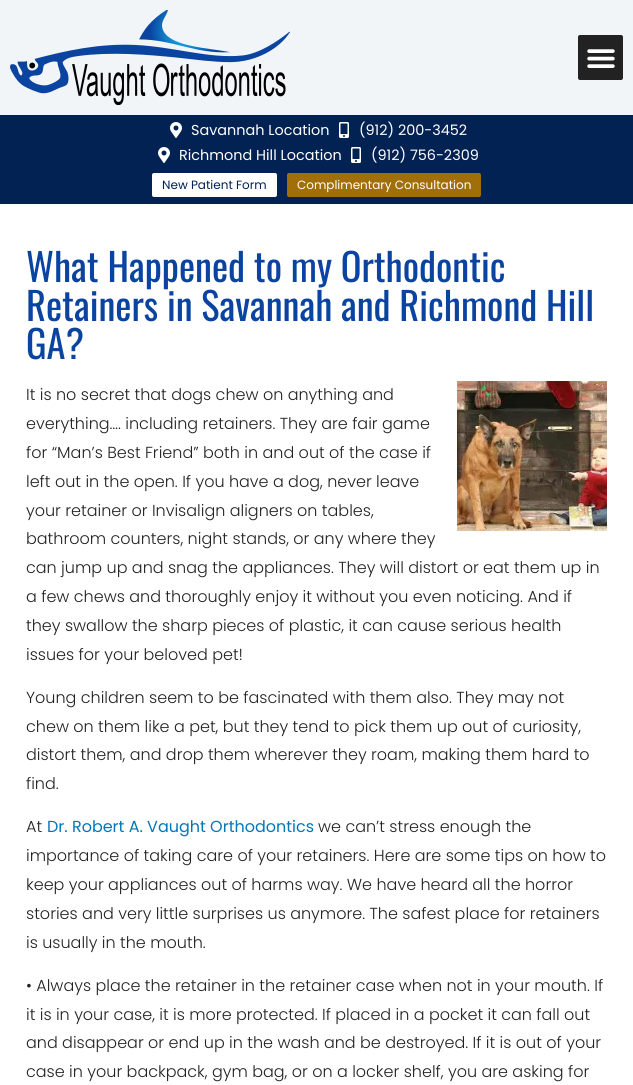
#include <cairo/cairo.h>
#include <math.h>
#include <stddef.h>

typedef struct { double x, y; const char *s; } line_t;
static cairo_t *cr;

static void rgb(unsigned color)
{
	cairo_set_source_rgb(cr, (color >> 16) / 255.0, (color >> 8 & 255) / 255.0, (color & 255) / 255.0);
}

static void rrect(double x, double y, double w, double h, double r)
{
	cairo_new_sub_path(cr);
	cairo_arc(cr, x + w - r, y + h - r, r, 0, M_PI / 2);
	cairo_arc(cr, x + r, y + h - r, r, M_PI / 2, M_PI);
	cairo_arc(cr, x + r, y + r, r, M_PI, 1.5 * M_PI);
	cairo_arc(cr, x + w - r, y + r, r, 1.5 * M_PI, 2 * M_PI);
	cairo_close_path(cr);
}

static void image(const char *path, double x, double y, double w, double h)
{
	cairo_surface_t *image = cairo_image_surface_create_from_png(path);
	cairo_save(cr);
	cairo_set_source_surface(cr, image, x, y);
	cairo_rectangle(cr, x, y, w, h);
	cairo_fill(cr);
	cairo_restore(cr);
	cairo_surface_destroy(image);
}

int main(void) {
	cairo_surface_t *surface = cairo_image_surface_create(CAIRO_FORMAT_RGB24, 633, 1085);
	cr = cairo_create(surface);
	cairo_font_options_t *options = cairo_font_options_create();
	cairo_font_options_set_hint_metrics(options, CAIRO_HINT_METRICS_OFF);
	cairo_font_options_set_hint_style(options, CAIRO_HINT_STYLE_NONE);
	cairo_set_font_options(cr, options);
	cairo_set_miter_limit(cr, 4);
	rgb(0xffffff);
	cairo_paint(cr);
	rgb(0xf1f5f7);
	cairo_rectangle(cr, 0, 0, 633, 115);
	cairo_fill(cr);
	image("img/1.png", 10, 10, 280, 95);
	rgb(0x222222);
	rrect(578, 35, 45, 45, 2);
	cairo_fill(cr);
	image("img/2.png", 587, 49, 28, 19);
	rgb(0x032254);
	cairo_rectangle(cr, 0, 115, 633, 89);
	cairo_fill(cr);
	image("img/3.png", 170, 122, 12, 16);
	image("img/4.png", 339, 122, 10, 16);
	image("img/3.png", 158, 147, 12, 16);
	image("img/4.png", 351, 147, 10, 16);
	rgb(0xffffff);
	rrect(152, 173, 125, 24, 2);
	cairo_fill(cr);
	rgb(0xa16f0a);
	rrect(287, 173, 194, 24, 2);
	cairo_fill(cr);
	image("img/5.png", 457, 381, 150, 150);
	cairo_select_font_face(cr, "Poppins", CAIRO_FONT_SLANT_NORMAL, CAIRO_FONT_WEIGHT_NORMAL);
	cairo_set_font_size(cr, 14.4);
	rgb(0xffffff);
	{
		static const line_t items[] = {
			{191, 135, "Savannah Location"},
			{359, 135, "(912) 200-3452"},
			{179, 160, "Richmond Hill Location"},
			{371, 160, "(912) 756-2309"},
		};
		for (size_t i = 0; i < sizeof items / sizeof *items; i++) {
			cairo_move_to(cr, items[i].x, items[i].y);
			cairo_show_text(cr, items[i].s);
		}
	}
	cairo_set_font_size(cr, 12);
	rgb(0x032254);
	cairo_move_to(cr, 162, 189);
	cairo_show_text(cr, "New Patient Form");
	rgb(0xffffff);
	cairo_move_to(cr, 297, 189);
	cairo_show_text(cr, "Complimentary Consultation");
	cairo_select_font_face(cr, "Oswald", CAIRO_FONT_SLANT_NORMAL, CAIRO_FONT_WEIGHT_NORMAL);
	cairo_set_font_size(cr, 38.4);
	rgb(0x0a44a0);
	{
		static const line_t items[] = {
			{26, 282, "What Happened to my Orthodontic"},
			{26, 321, "Retainers in Savannah and Richmond Hill"},
			{26, 359, "GA?"},
		};
		for (size_t i = 0; i < sizeof items / sizeof *items; i++) {
			cairo_move_to(cr, items[i].x, items[i].y);
			cairo_show_text(cr, items[i].s);
		}
	}
	cairo_select_font_face(cr, "Poppins Light", CAIRO_FONT_SLANT_NORMAL, CAIRO_FONT_WEIGHT_NORMAL);
	cairo_set_font_size(cr, 16);
	rgb(0x222222);
	{
		static const line_t items[] = {
			{26, 400, "It is no secret that dogs chew on anything and"},
			{26, 429, "everything…. including retainers. They are fair game"},
			{26, 458, "for “Man’s Best Friend” both in and out of the case if"},
			{26, 487, "left out in the open. If you have a dog, never leave"},
			{26, 516, "your retainer or Invisalign aligners on tables,"},
			{26, 544, "bathroom counters, night stands, or any where they"},
			{26, 573, "can jump up and snag the appliances. They will distort or eat them up in"},
			{26, 602, "a few chews and thoroughly enjoy it without you even noticing. And if"},
			{26, 631, "they swallow the sharp pieces of plastic, it can cause serious health"},
			{26, 660, "issues for your beloved pet!"},
			{26, 703, "Young children seem to be fascinated with them also. They may not"},
			{26, 732, "chew on them like a pet, but they tend to pick them up out of curiosity,"},
			{26, 760, "distort them, and drop them wherever they roam, making them hard to"},
			{26, 789, "find."},
			{26, 832, "At"},
		};
		for (size_t i = 0; i < sizeof items / sizeof *items; i++) {
			cairo_move_to(cr, items[i].x, items[i].y);
			cairo_show_text(cr, items[i].s);
		}
	}
	cairo_select_font_face(cr, "Poppins", CAIRO_FONT_SLANT_NORMAL, CAIRO_FONT_WEIGHT_NORMAL);
	rgb(0x0277b8);
	cairo_move_to(cr, 47, 832);
	cairo_show_text(cr, "Dr. Robert A. Vaught Orthodontics");
	cairo_select_font_face(cr, "Poppins Light", CAIRO_FONT_SLANT_NORMAL, CAIRO_FONT_WEIGHT_NORMAL);
	rgb(0x222222);
	{
		static const line_t items[] = {
			{318, 832, "we can’t stress enough the"},
			{26, 861, "importance of taking care of your retainers. Here are some tips on how to"},
			{26, 890, "keep your appliances out of harms way. We have heard all the horror"},
			{26, 919, "stories and very little surprises us anymore. The safest place for retainers"},
			{26, 948, "is usually in the mouth."},
			{26, 991, "• Always place the retainer in the retainer case when not in your mouth. If"},
			{26, 1020, "it is in your case, it is more protected. If placed in a pocket it can fall out"},
			{26, 1048, "and disappear or end up in the wash and be destroyed. If it is out of your"},
			{26, 1077, "case in your backpack, gym bag, or on a locker shelf, you are asking for"},
		};
		for (size_t i = 0; i < sizeof items / sizeof *items; i++) {
			cairo_move_to(cr, items[i].x, items[i].y);
			cairo_show_text(cr, items[i].s);
		}
	}
	cairo_surface_write_to_png(surface, "page.png");
	cairo_font_options_destroy(options);
	cairo_destroy(cr);
	cairo_surface_destroy(surface);
	return 0;
}
